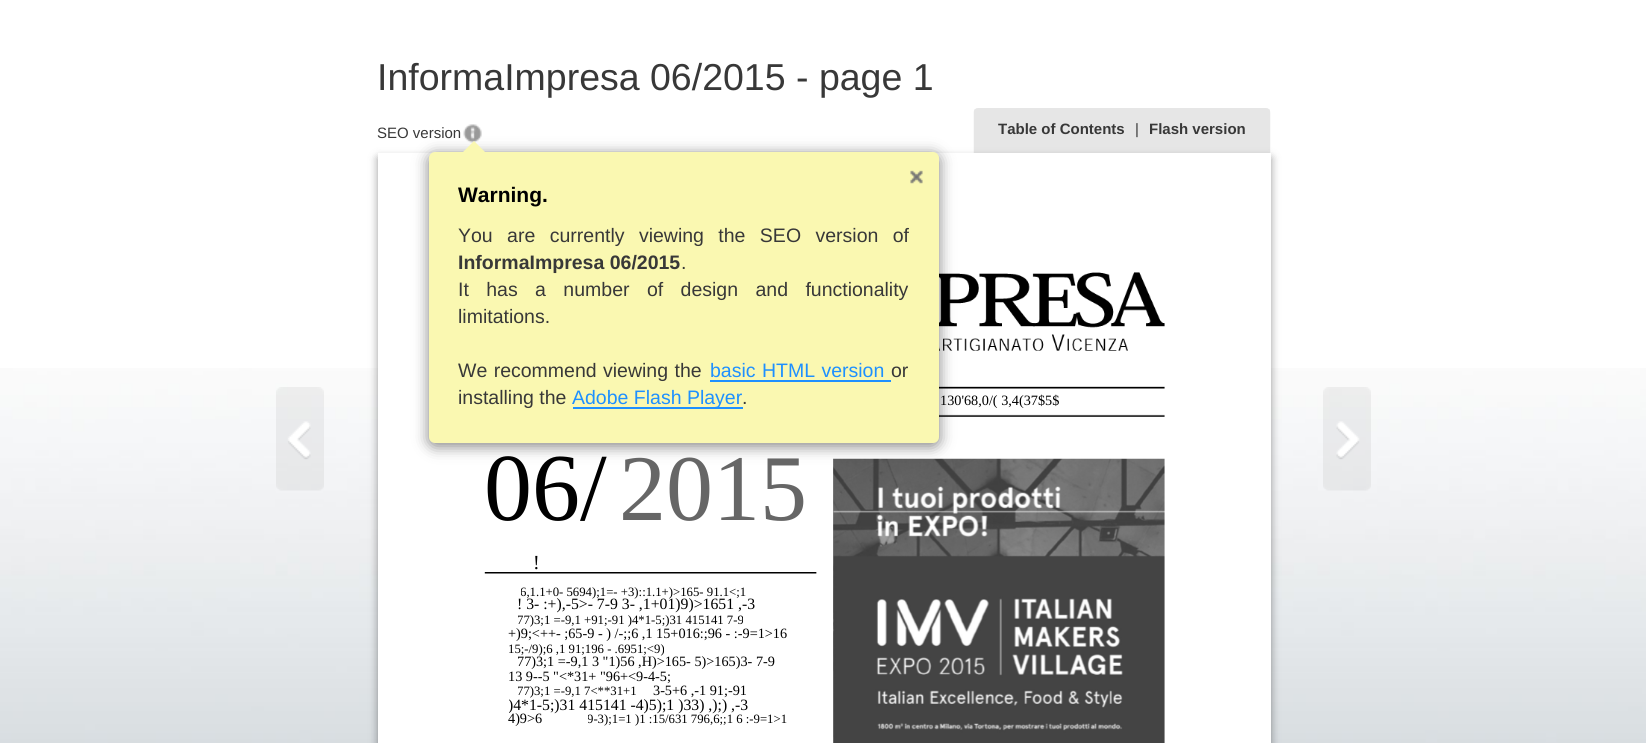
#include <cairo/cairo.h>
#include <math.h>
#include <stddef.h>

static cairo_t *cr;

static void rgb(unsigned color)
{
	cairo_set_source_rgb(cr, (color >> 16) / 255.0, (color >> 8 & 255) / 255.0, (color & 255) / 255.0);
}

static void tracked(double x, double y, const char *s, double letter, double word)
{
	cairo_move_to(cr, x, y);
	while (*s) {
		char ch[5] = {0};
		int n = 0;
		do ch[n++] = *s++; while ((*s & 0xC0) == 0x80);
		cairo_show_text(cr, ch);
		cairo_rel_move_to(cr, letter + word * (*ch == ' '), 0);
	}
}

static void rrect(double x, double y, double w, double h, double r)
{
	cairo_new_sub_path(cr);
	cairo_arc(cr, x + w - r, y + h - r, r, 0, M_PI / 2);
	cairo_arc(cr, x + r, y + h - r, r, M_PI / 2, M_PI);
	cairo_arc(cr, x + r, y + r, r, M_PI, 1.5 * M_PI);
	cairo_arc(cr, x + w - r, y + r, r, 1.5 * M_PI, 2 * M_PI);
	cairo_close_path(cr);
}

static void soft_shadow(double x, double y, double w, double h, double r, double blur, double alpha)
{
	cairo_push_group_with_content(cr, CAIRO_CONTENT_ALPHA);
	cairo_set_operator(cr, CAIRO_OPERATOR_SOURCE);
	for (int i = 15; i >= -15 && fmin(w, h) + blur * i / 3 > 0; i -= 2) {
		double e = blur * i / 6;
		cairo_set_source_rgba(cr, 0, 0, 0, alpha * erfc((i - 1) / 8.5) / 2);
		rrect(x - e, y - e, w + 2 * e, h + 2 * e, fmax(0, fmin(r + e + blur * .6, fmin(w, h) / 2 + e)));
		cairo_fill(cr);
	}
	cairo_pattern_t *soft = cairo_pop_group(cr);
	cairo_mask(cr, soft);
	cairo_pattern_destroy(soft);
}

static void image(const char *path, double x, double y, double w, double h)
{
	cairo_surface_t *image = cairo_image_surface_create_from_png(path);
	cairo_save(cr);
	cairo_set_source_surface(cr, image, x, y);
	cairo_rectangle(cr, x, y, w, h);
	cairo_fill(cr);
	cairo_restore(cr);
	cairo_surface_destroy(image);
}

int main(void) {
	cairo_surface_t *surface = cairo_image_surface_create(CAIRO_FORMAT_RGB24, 1646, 743);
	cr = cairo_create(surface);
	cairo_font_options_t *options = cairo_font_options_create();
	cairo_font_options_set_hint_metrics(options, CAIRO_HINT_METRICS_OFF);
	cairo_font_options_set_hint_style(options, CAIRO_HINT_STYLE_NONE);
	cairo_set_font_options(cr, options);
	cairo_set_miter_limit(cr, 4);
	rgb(0xffffff);
	cairo_paint(cr);
	image("img/1.png", 0, 742, 1646, 1);
	image("img/6.png", 0, 368, 1646, 375);
	rgb(0x000000);
	soft_shadow(378, 158, 893, 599, 0, 4.5, 0.4);
	rgb(0xffffff);
	cairo_rectangle(cr, 378, 153, 893, 590);
	cairo_fill(cr);
	image("img/2.png", 463, 124, 19, 19);
	image("img/5.png", 484, 259, 681, 484);
	rgb(0x000000);
	soft_shadow(429, 155, 510, 291, 6, 7.5, 0.5);
	rgb(0xfaf8b1);
	rrect(429, 152, 510, 291, 6);
	cairo_fill(cr);
	cairo_new_path(cr);
	cairo_move_to(cr, 489, 156);
	cairo_line_to(cr, 459, 156);
	cairo_line_to(cr, 474, 141);
	cairo_close_path(cr);
	cairo_fill(cr);
	image("img/3.png", 910, 170, 13, 14);
	rgb(0x1e90ff);
	cairo_rectangle(cr, 710, 380, 181, 2);
	cairo_fill(cr);
	cairo_rectangle(cr, 573, 407, 170, 2);
	cairo_fill(cr);
	image("img/4.png", 973, 108, 298, 45);
	image("img/7.png", 276, 387, 48, 104);
	image("img/8.png", 1323, 387, 48, 104);
	cairo_select_font_face(cr, "Liberation Sans", CAIRO_FONT_SLANT_NORMAL, CAIRO_FONT_WEIGHT_NORMAL);
	cairo_set_font_size(cr, 37.5);
	rgb(0x383838);
	cairo_move_to(cr, 377, 90);
	cairo_show_text(cr, "InformaImpresa 06/2015 - page 1");
	cairo_set_font_size(cr, 15);
	cairo_move_to(cr, 377, 138);
	cairo_show_text(cr, "SEO version");
	cairo_select_font_face(cr, "Liberation Sans", CAIRO_FONT_SLANT_NORMAL, CAIRO_FONT_WEIGHT_BOLD);
	cairo_set_font_size(cr, 21);
	rgb(0x000000);
	cairo_move_to(cr, 458, 202);
	cairo_show_text(cr, "Warning.");
	cairo_select_font_face(cr, "Liberation Sans", CAIRO_FONT_SLANT_NORMAL, CAIRO_FONT_WEIGHT_NORMAL);
	cairo_set_font_size(cr, 19.5);
	rgb(0x383838);
	tracked(458, 242, "You are currently viewing the SEO version of", 0, 9);
	cairo_select_font_face(cr, "Liberation Sans", CAIRO_FONT_SLANT_NORMAL, CAIRO_FONT_WEIGHT_BOLD);
	cairo_move_to(cr, 458, 269);
	cairo_show_text(cr, "InformaImpresa 06/2015");
	cairo_select_font_face(cr, "Liberation Sans", CAIRO_FONT_SLANT_NORMAL, CAIRO_FONT_WEIGHT_NORMAL);
	cairo_move_to(cr, 681, 269);
	cairo_show_text(cr, ".");
	tracked(458, 296, "It has a number of design and functionality", 0, 12);
	cairo_move_to(cr, 458, 323);
	cairo_show_text(cr, "limitations.");
	tracked(458, 377, "We recommend viewing the", 0, 1);
	rgb(0x1e90ff);
	tracked(710, 377, "basic HTML version", 0, 1);
	rgb(0x383838);
	cairo_move_to(cr, 891, 377);
	cairo_show_text(cr, "or");
	cairo_move_to(cr, 458, 404);
	cairo_show_text(cr, "installing the");
	rgb(0x1e90ff);
	cairo_move_to(cr, 572, 404);
	cairo_show_text(cr, "Adobe Flash Player");
	rgb(0x383838);
	cairo_move_to(cr, 742, 404);
	cairo_show_text(cr, ".");
	cairo_select_font_face(cr, "Liberation Sans", CAIRO_FONT_SLANT_NORMAL, CAIRO_FONT_WEIGHT_BOLD);
	cairo_set_font_size(cr, 15);
	cairo_move_to(cr, 998, 134);
	cairo_show_text(cr, "Table of Contents");
	cairo_select_font_face(cr, "Liberation Sans", CAIRO_FONT_SLANT_NORMAL, CAIRO_FONT_WEIGHT_NORMAL);
	cairo_move_to(cr, 1135, 134);
	cairo_show_text(cr, "|");
	cairo_select_font_face(cr, "Liberation Sans", CAIRO_FONT_SLANT_NORMAL, CAIRO_FONT_WEIGHT_BOLD);
	cairo_move_to(cr, 1149, 134);
	cairo_show_text(cr, "Flash version");
	cairo_select_font_face(cr, "Liberation Serif", CAIRO_FONT_SLANT_NORMAL, CAIRO_FONT_WEIGHT_NORMAL);
	cairo_set_font_size(cr, 14.25);
	rgb(0x000000);
	cairo_move_to(cr, 940, 405);
	cairo_show_text(cr, "130'68,0/( 3,4(37$5$");
	cairo_set_font_size(cr, 96);
	cairo_move_to(cr, 484, 520);
	cairo_show_text(cr, "06/");
	cairo_set_font_size(cr, 94);
	rgb(0x666666);
	cairo_move_to(cr, 619, 520);
	cairo_show_text(cr, "2015");
	cairo_set_font_size(cr, 20);
	rgb(0x000000);
	cairo_move_to(cr, 533, 569);
	cairo_show_text(cr, "!");
	cairo_save(cr);
	cairo_rectangle(cr, 521, 582, 243, 18);
	cairo_clip(cr);
	cairo_set_font_size(cr, 12.75);
	cairo_move_to(cr, 520, 596);
	cairo_show_text(cr, "6,1.1+0- 5694);1=- +3)::1.1+)>165- 91.1<;1");
	cairo_restore(cr);
	cairo_set_font_size(cr, 15.75);
	cairo_move_to(cr, 517, 609);
	cairo_show_text(cr, "! 3- :+),-5>- 7-9 3- ,1+01)9)>1651 ,-3");
	cairo_save(cr);
	cairo_rectangle(cr, 518, 611, 250, 18);
	cairo_clip(cr);
	cairo_set_font_size(cr, 12.75);
	cairo_move_to(cr, 517, 624);
	cairo_show_text(cr, "77)3;1 =-9,1 +91;-91 )4*1-5;)31 415141 7-9");
	cairo_restore(cr);
	cairo_set_font_size(cr, 14.25);
	cairo_move_to(cr, 508, 638);
	cairo_show_text(cr, "+)9;<++- ;65-9 - ) /-;;6 ,1 15+016:;96 - :-9=1>16");
	cairo_set_font_size(cr, 12.75);
	cairo_move_to(cr, 508, 653);
	cairo_show_text(cr, "15;-/9);6 ,1 91;196 - .6951;<9)");
	cairo_save(cr);
	cairo_rectangle(cr, 518, 653, 262, 18);
	cairo_clip(cr);
	cairo_set_font_size(cr, 14.25);
	cairo_move_to(cr, 517, 666);
	cairo_show_text(cr, "77)3;1 =-9,1 3 \"1)56 ,H)>165- 5)>165)3- 7-9");
	cairo_restore(cr);
	cairo_set_font_size(cr, 14.25);
	cairo_move_to(cr, 508, 681);
	cairo_show_text(cr, "13 9--5 \"<*31+ \"96+<9-4-5;");
	cairo_save(cr);
	cairo_rectangle(cr, 518, 681, 121, 18);
	cairo_clip(cr);
	cairo_set_font_size(cr, 12.75);
	cairo_move_to(cr, 517, 695);
	cairo_show_text(cr, "77)3;1 =-9,1 7<**31+1");
	cairo_restore(cr);
	cairo_move_to(cr, 653, 695);
	cairo_show_text(cr, "3-5+6 ,-1 91;-91");
	cairo_save(cr);
	cairo_rectangle(cr, 509, 696, 244, 18);
	cairo_clip(cr);
	cairo_set_font_size(cr, 15.75);
	cairo_move_to(cr, 508, 710);
	cairo_show_text(cr, ")4*1-5;)31 415141 -4)5);1 )33) ,);) ,-3");
	cairo_restore(cr);
	cairo_move_to(cr, 508, 723);
	cairo_show_text(cr, "4)9>6");
	cairo_save(cr);
	cairo_rectangle(cr, 588, 710, 209, 18);
	cairo_clip(cr);
	cairo_set_font_size(cr, 12.75);
	cairo_move_to(cr, 587, 723);
	cairo_show_text(cr, "9-3);1=1 )1 :15/631 796,6;;1 6 :-9=1>1");
	cairo_restore(cr);
	cairo_surface_write_to_png(surface, "page.png");
	cairo_font_options_destroy(options);
	cairo_destroy(cr);
	cairo_surface_destroy(surface);
	return 0;
}
